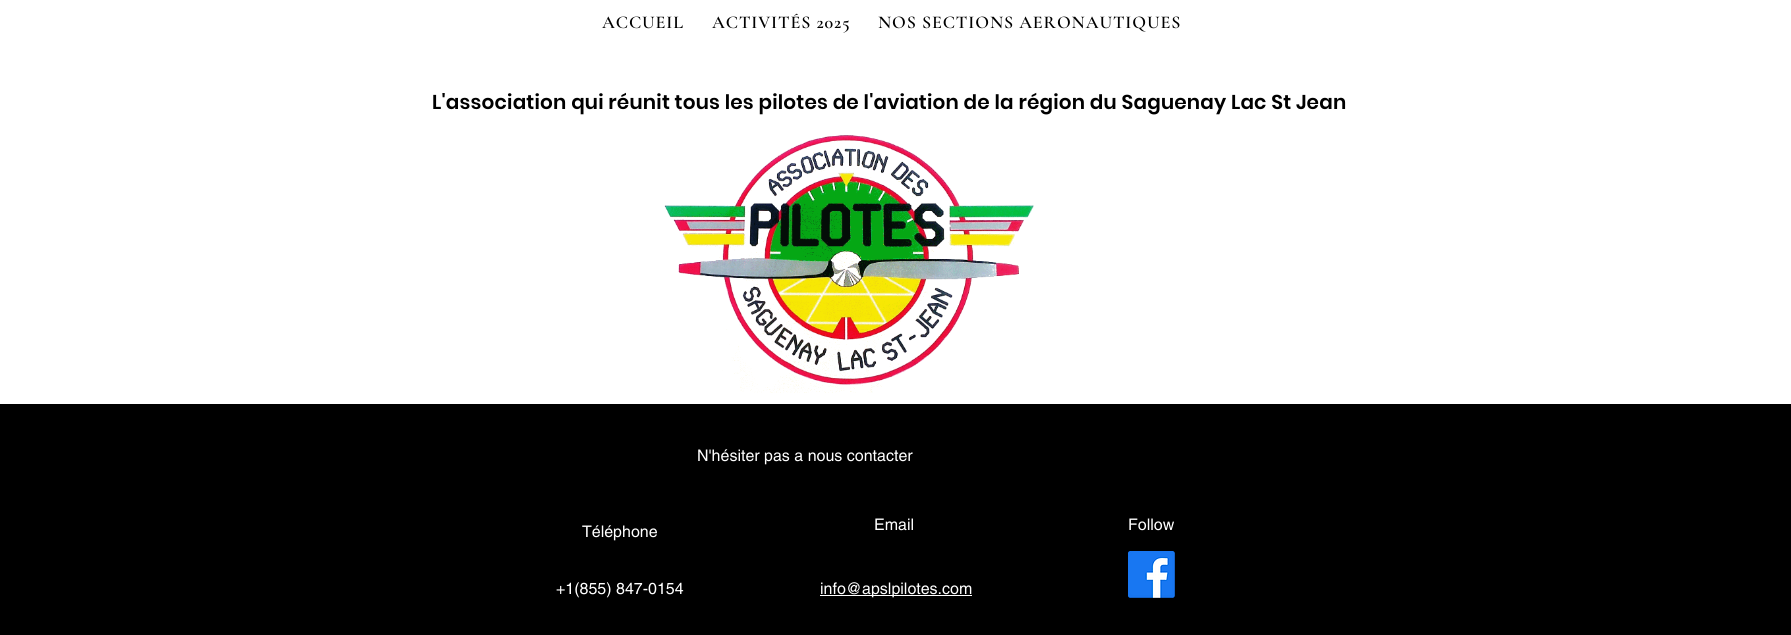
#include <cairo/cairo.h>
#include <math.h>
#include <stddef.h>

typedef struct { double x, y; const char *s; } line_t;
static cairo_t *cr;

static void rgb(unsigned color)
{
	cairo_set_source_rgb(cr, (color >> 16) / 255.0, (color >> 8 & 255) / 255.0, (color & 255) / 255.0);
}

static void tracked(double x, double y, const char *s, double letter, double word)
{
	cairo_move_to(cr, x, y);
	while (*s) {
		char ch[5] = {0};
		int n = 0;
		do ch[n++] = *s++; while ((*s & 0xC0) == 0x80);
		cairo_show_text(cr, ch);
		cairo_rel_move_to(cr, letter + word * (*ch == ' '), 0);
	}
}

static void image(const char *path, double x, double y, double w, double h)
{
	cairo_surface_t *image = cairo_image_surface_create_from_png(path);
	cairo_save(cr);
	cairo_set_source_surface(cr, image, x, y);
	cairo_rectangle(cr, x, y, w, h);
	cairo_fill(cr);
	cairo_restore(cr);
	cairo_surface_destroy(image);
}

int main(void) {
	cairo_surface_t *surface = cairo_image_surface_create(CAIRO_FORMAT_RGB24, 1791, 635);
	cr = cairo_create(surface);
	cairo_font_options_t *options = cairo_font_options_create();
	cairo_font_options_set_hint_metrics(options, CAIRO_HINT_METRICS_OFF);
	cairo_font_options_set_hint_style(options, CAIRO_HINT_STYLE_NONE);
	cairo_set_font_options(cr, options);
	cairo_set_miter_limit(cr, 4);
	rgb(0xffffff);
	cairo_paint(cr);
	image("img/1.png", 664, 135, 370, 258);
	rgb(0x000000);
	cairo_rectangle(cr, 0, 404, 1791, 231);
	cairo_fill(cr);
	rgb(0xffffff);
	cairo_rectangle(cr, 820, 595, 152, 1);
	cairo_fill(cr);
	image("img/2.png", 1128, 551, 47, 47);
	cairo_select_font_face(cr, "Cormorant Garamond SemiBold", CAIRO_FONT_SLANT_NORMAL, CAIRO_FONT_WEIGHT_NORMAL);
	cairo_set_font_size(cr, 18);
	rgb(0x000000);
	{
		static const line_t items[] = {
			{602, 28, "ACCUEIL"},
			{712, 28, "ACTIVITÉS 2025"},
			{878, 28, "NOS SECTIONS AERONAUTIQUES"},
		};
		for (size_t i = 0; i < sizeof items / sizeof *items; i++) {
			tracked(items[i].x, items[i].y, items[i].s, 0.9, 0);
		}
	}
	cairo_select_font_face(cr, "Poppins SemiBold", CAIRO_FONT_SLANT_NORMAL, CAIRO_FONT_WEIGHT_NORMAL);
	cairo_set_font_size(cr, 20);
	tracked(432, 109, "L'association qui réunit tous les pilotes de l'aviation de la région du Saguenay Lac St Jean", 0.2, 0);
	cairo_select_font_face(cr, "helvetica", CAIRO_FONT_SLANT_NORMAL, CAIRO_FONT_WEIGHT_NORMAL);
	cairo_set_font_size(cr, 16);
	rgb(0xffffff);
	{
		static const line_t items[] = {
			{697, 461, "N'hésiter pas a nous contacter"},
			{582, 537, "Téléphone"},
			{874, 530, "Email"},
			{1128, 530, "Follow"},
			{556, 594, "+1(855) 847-0154"},
			{820, 594, "info@apslpilotes.com"},
		};
		for (size_t i = 0; i < sizeof items / sizeof *items; i++) {
			cairo_move_to(cr, items[i].x, items[i].y);
			cairo_show_text(cr, items[i].s);
		}
	}
	cairo_surface_write_to_png(surface, "page.png");
	cairo_font_options_destroy(options);
	cairo_destroy(cr);
	cairo_surface_destroy(surface);
	return 0;
}
